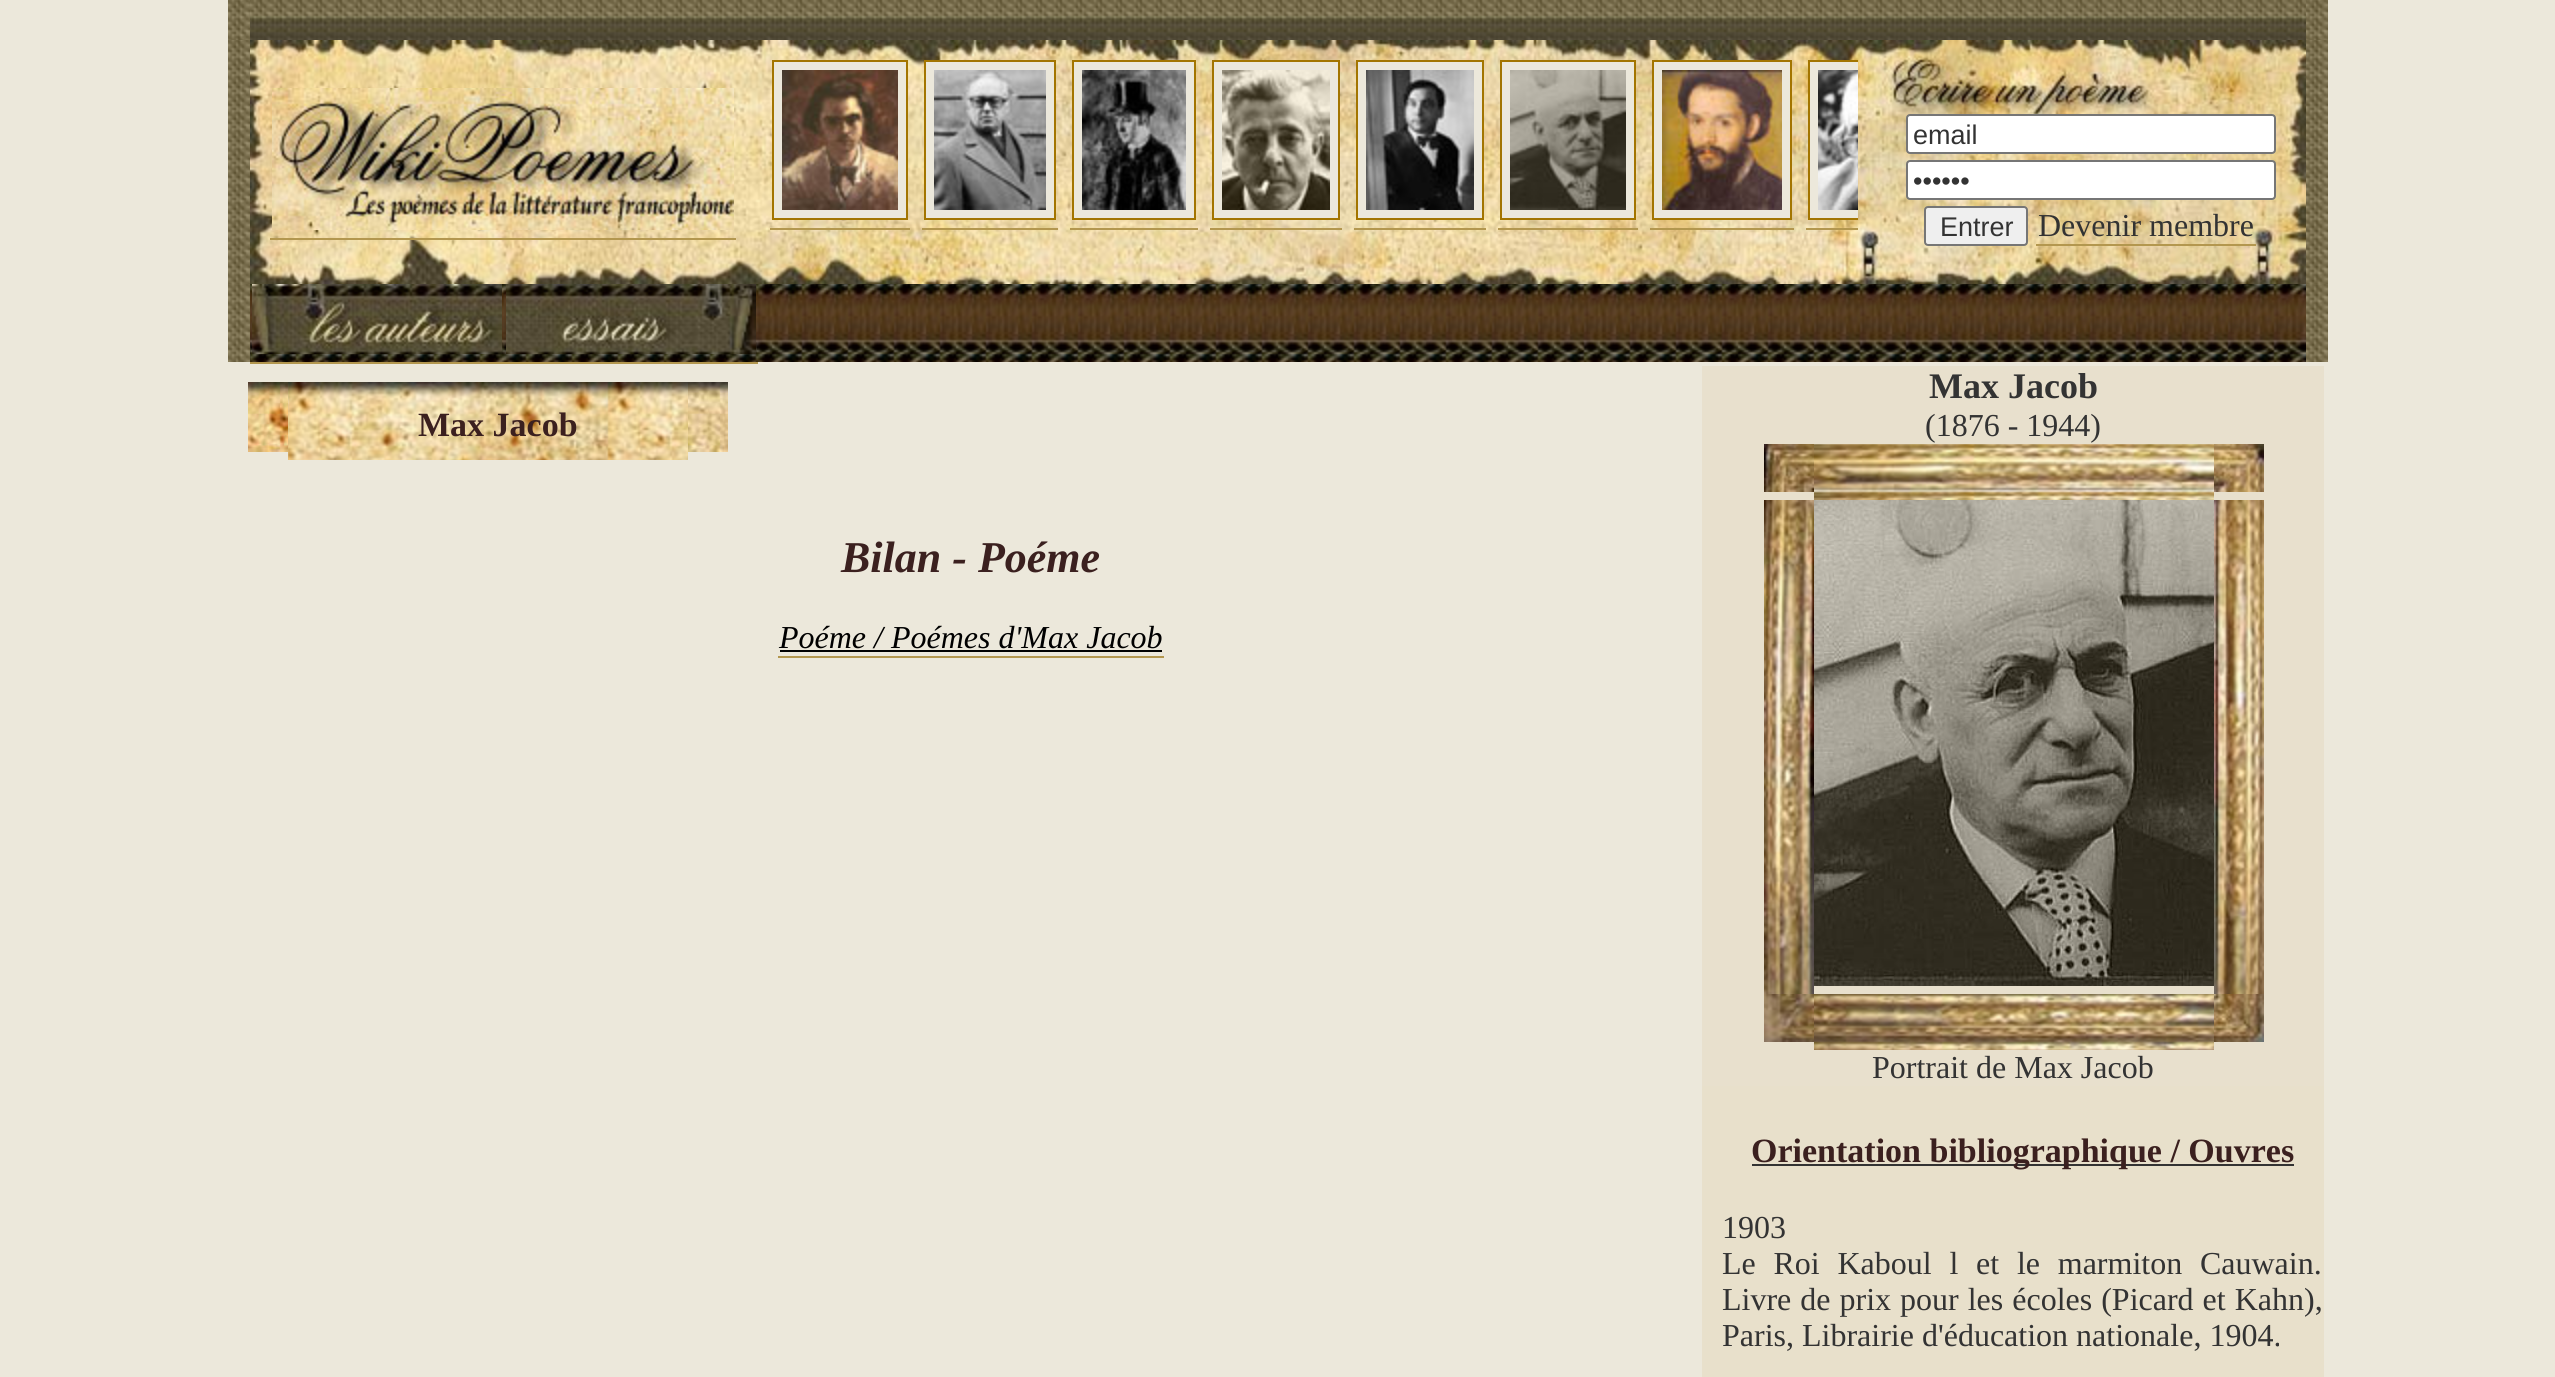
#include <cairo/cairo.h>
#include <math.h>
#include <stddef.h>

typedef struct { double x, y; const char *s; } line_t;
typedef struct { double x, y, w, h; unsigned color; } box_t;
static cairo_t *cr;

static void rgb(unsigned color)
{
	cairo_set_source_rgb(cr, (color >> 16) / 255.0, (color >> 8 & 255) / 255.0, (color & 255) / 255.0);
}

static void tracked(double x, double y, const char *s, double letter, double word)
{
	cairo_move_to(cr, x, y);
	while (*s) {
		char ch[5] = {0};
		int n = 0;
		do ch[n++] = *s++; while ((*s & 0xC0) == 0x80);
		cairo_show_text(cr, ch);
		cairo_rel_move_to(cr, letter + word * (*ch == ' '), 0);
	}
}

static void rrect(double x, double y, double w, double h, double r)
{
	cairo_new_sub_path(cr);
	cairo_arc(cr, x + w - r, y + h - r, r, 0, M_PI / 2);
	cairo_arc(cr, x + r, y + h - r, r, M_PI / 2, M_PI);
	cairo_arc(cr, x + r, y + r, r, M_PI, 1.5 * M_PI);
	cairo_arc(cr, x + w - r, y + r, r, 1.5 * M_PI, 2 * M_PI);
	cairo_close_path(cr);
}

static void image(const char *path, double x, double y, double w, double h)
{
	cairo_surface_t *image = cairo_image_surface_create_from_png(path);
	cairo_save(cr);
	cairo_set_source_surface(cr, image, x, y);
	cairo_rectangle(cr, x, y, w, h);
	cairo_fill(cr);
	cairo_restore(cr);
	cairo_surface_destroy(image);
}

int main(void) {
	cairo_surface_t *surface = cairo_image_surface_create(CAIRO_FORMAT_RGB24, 2555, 1377);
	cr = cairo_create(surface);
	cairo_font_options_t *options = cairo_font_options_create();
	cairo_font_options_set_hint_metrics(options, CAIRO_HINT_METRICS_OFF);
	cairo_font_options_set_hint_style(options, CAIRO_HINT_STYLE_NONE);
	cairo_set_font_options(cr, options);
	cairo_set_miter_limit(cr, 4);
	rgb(0xece8db);
	cairo_paint(cr);
	image("img/1.png", 228, 0, 22, 40);
	image("img/2.png", 250, 0, 2056, 40);
	image("img/1.png", 2306, 0, 22, 40);
	image("img/3.png", 228, 40, 22, 244);
	image("img/4.png", 250, 40, 2056, 244);
	image("img/5.png", 272, 88, 462, 142);
	rgb(0xb3974f);
	cairo_rectangle(cr, 270, 238, 466, 2);
	cairo_fill(cr);
	rgb(0xece8db);
	cairo_rectangle(cr, 773, 61, 134, 158);
	cairo_fill_preserve(cr);
	rgb(0xa37500);
	cairo_stroke(cr);
	image("img/6.png", 782, 70, 116, 140);
	rgb(0xb3974f);
	cairo_rectangle(cr, 770, 228, 140, 2);
	cairo_fill(cr);
	rgb(0xece8db);
	cairo_rectangle(cr, 925, 61, 130, 158);
	cairo_fill_preserve(cr);
	rgb(0xa37500);
	cairo_stroke(cr);
	image("img/7.png", 934, 70, 112, 140);
	rgb(0xb3974f);
	cairo_rectangle(cr, 922, 228, 136, 2);
	cairo_fill(cr);
	rgb(0xece8db);
	cairo_rectangle(cr, 1073, 61, 122, 158);
	cairo_fill_preserve(cr);
	rgb(0xa37500);
	cairo_stroke(cr);
	image("img/8.png", 1082, 70, 104, 140);
	rgb(0xb3974f);
	cairo_rectangle(cr, 1070, 228, 128, 2);
	cairo_fill(cr);
	rgb(0xece8db);
	cairo_rectangle(cr, 1213, 61, 126, 158);
	cairo_fill_preserve(cr);
	rgb(0xa37500);
	cairo_stroke(cr);
	image("img/9.png", 1222, 70, 108, 140);
	rgb(0xb3974f);
	cairo_rectangle(cr, 1210, 228, 132, 2);
	cairo_fill(cr);
	rgb(0xece8db);
	cairo_rectangle(cr, 1357, 61, 126, 158);
	cairo_fill_preserve(cr);
	rgb(0xa37500);
	cairo_stroke(cr);
	image("img/10.png", 1366, 70, 108, 140);
	rgb(0xb3974f);
	cairo_rectangle(cr, 1354, 228, 132, 2);
	cairo_fill(cr);
	rgb(0xece8db);
	cairo_rectangle(cr, 1501, 61, 134, 158);
	cairo_fill_preserve(cr);
	rgb(0xa37500);
	cairo_stroke(cr);
	image("img/11.png", 1510, 70, 116, 140);
	rgb(0xb3974f);
	cairo_rectangle(cr, 1498, 228, 140, 2);
	cairo_fill(cr);
	rgb(0xece8db);
	cairo_rectangle(cr, 1653, 61, 138, 158);
	cairo_fill_preserve(cr);
	rgb(0xa37500);
	cairo_stroke(cr);
	image("img/12.png", 1662, 70, 120, 140);
	{
		static const box_t items[] = {
			{1650, 228, 144, 2, 0xb3974f},
			{1810, 62, 48, 156, 0xece8db},
			{1806, 228, 52, 2, 0xb3974f},
		};
		for (size_t i = 0; i < sizeof items / sizeof *items; i++) {
			rgb(items[i].color);
			cairo_rectangle(cr, items[i].x, items[i].y, items[i].w, items[i].h);
			cairo_fill(cr);
		}
	}
	rgb(0xffffff);
	rrect(1907, 115, 368, 38, 3);
	cairo_fill_preserve(cr);
	rgb(0x767676);
	cairo_stroke(cr);
	rgb(0xffffff);
	rrect(1907, 161, 368, 38, 3);
	cairo_fill_preserve(cr);
	rgb(0x767676);
	cairo_stroke(cr);
	rgb(0xefefef);
	rrect(1925, 207, 102, 38, 3);
	cairo_fill_preserve(cr);
	rgb(0x767676);
	cairo_stroke(cr);
	rgb(0xb3974f);
	cairo_rectangle(cr, 2036, 244, 220, 2);
	cairo_fill(cr);
	image("img/3.png", 2306, 40, 22, 244);
	image("img/14.png", 228, 284, 22, 78);
	image("img/15.png", 250, 284, 2056, 78);
	image("img/16.png", 252, 284, 250, 70);
	cairo_rectangle(cr, 250, 362, 508, 2);
	cairo_fill(cr);
	image("img/17.png", 506, 284, 250, 70);
	image("img/14.png", 2306, 284, 22, 78);
	image("img/18.png", 248, 382, 40, 70);
	image("img/19.png", 288, 382, 400, 78);
	image("img/20.png", 688, 382, 40, 70);
	{
		static const box_t items[] = {
			{778, 656, 386, 2, 0xb3974f},
			{780, 650, 382, 2, 0x000000},
			{1702, 1086, 622, 291, 0xe8e0cb},
			{1702, 366, 622, 720, 0xe8e0cd},
		};
		for (size_t i = 0; i < sizeof items / sizeof *items; i++) {
			rgb(items[i].color);
			cairo_rectangle(cr, items[i].x, items[i].y, items[i].w, items[i].h);
			cairo_fill(cr);
		}
	}
	image("img/21.png", 1764, 444, 50, 48);
	image("img/22.png", 1814, 444, 400, 56);
	image("img/23.png", 2214, 444, 50, 48);
	image("img/24.png", 1764, 500, 50, 494);
	image("img/25.png", 1814, 500, 400, 486);
	image("img/26.png", 2214, 500, 50, 494);
	image("img/27.png", 1764, 994, 50, 48);
	image("img/28.png", 1814, 994, 400, 56);
	image("img/29.png", 2214, 994, 50, 48);
	rgb(0x333333);
	cairo_rectangle(cr, 1752, 1164, 542, 2);
	cairo_fill(cr);
	cairo_select_font_face(cr, "Liberation Sans", CAIRO_FONT_SLANT_NORMAL, CAIRO_FONT_WEIGHT_NORMAL);
	cairo_set_font_size(cr, 27);
	{
		static const line_t items[] = {
			{1913, 144, "email"},
			{1913, 190, "••••••"},
			{1940, 236, "Entrer"},
		};
		for (size_t i = 0; i < sizeof items / sizeof *items; i++) {
			cairo_move_to(cr, items[i].x, items[i].y);
			cairo_show_text(cr, items[i].s);
		}
	}
	cairo_save(cr);
	cairo_rectangle(cr, 754, 44, 1104, 236);
	cairo_clip(cr);
	cairo_rectangle(cr, 1809, 61, 154, 158);
	rgb(0xa37500);
	cairo_stroke(cr);
	cairo_restore(cr);
	image("img/13.png", 1818, 70, 40, 140);
	cairo_select_font_face(cr, "Liberation Serif", CAIRO_FONT_SLANT_NORMAL, CAIRO_FONT_WEIGHT_NORMAL);
	cairo_set_font_size(cr, 32);
	cairo_move_to(cr, 2038, 236);
	cairo_show_text(cr, "Devenir membre");
	cairo_select_font_face(cr, "Liberation Serif", CAIRO_FONT_SLANT_NORMAL, CAIRO_FONT_WEIGHT_BOLD);
	cairo_set_font_size(cr, 34);
	rgb(0x3b201f);
	cairo_move_to(cr, 418, 436);
	cairo_show_text(cr, "Max Jacob");
	cairo_select_font_face(cr, "Liberation Serif", CAIRO_FONT_SLANT_ITALIC, CAIRO_FONT_WEIGHT_BOLD);
	cairo_set_font_size(cr, 44);
	cairo_move_to(cr, 841, 572);
	cairo_show_text(cr, "Bilan - Poéme");
	cairo_select_font_face(cr, "Liberation Serif", CAIRO_FONT_SLANT_ITALIC, CAIRO_FONT_WEIGHT_NORMAL);
	cairo_set_font_size(cr, 32);
	rgb(0x000000);
	cairo_move_to(cr, 779, 648);
	cairo_show_text(cr, "Poéme / Poémes d'Max Jacob");
	cairo_select_font_face(cr, "Liberation Serif", CAIRO_FONT_SLANT_NORMAL, CAIRO_FONT_WEIGHT_BOLD);
	cairo_set_font_size(cr, 36);
	rgb(0x333333);
	cairo_move_to(cr, 1929, 398);
	cairo_show_text(cr, "Max Jacob");
	cairo_select_font_face(cr, "Liberation Serif", CAIRO_FONT_SLANT_NORMAL, CAIRO_FONT_WEIGHT_NORMAL);
	cairo_set_font_size(cr, 32);
	cairo_move_to(cr, 1925, 436);
	cairo_show_text(cr, "(1876 - 1944)");
	cairo_move_to(cr, 1872, 1078);
	cairo_show_text(cr, "Portrait de Max Jacob");
	cairo_select_font_face(cr, "Liberation Serif", CAIRO_FONT_SLANT_NORMAL, CAIRO_FONT_WEIGHT_BOLD);
	cairo_set_font_size(cr, 34);
	rgb(0x3b201f);
	cairo_move_to(cr, 1751, 1162);
	cairo_show_text(cr, "Orientation bibliographique / Ouvres");
	cairo_select_font_face(cr, "Liberation Serif", CAIRO_FONT_SLANT_NORMAL, CAIRO_FONT_WEIGHT_NORMAL);
	cairo_set_font_size(cr, 32);
	rgb(0x333333);
	cairo_move_to(cr, 1722, 1238);
	cairo_show_text(cr, "1903");
	tracked(1722, 1274, "Le Roi Kaboul l et le marmiton Cauwain.", 0, 9.75);
	tracked(1722, 1310, "Livre de prix pour les écoles (Picard et Kahn),", 0, 1);
	cairo_move_to(cr, 1722, 1346);
	cairo_show_text(cr, "Paris, Librairie d'éducation nationale, 1904.");
	cairo_surface_write_to_png(surface, "page.png");
	cairo_font_options_destroy(options);
	cairo_destroy(cr);
	cairo_surface_destroy(surface);
	return 0;
}
